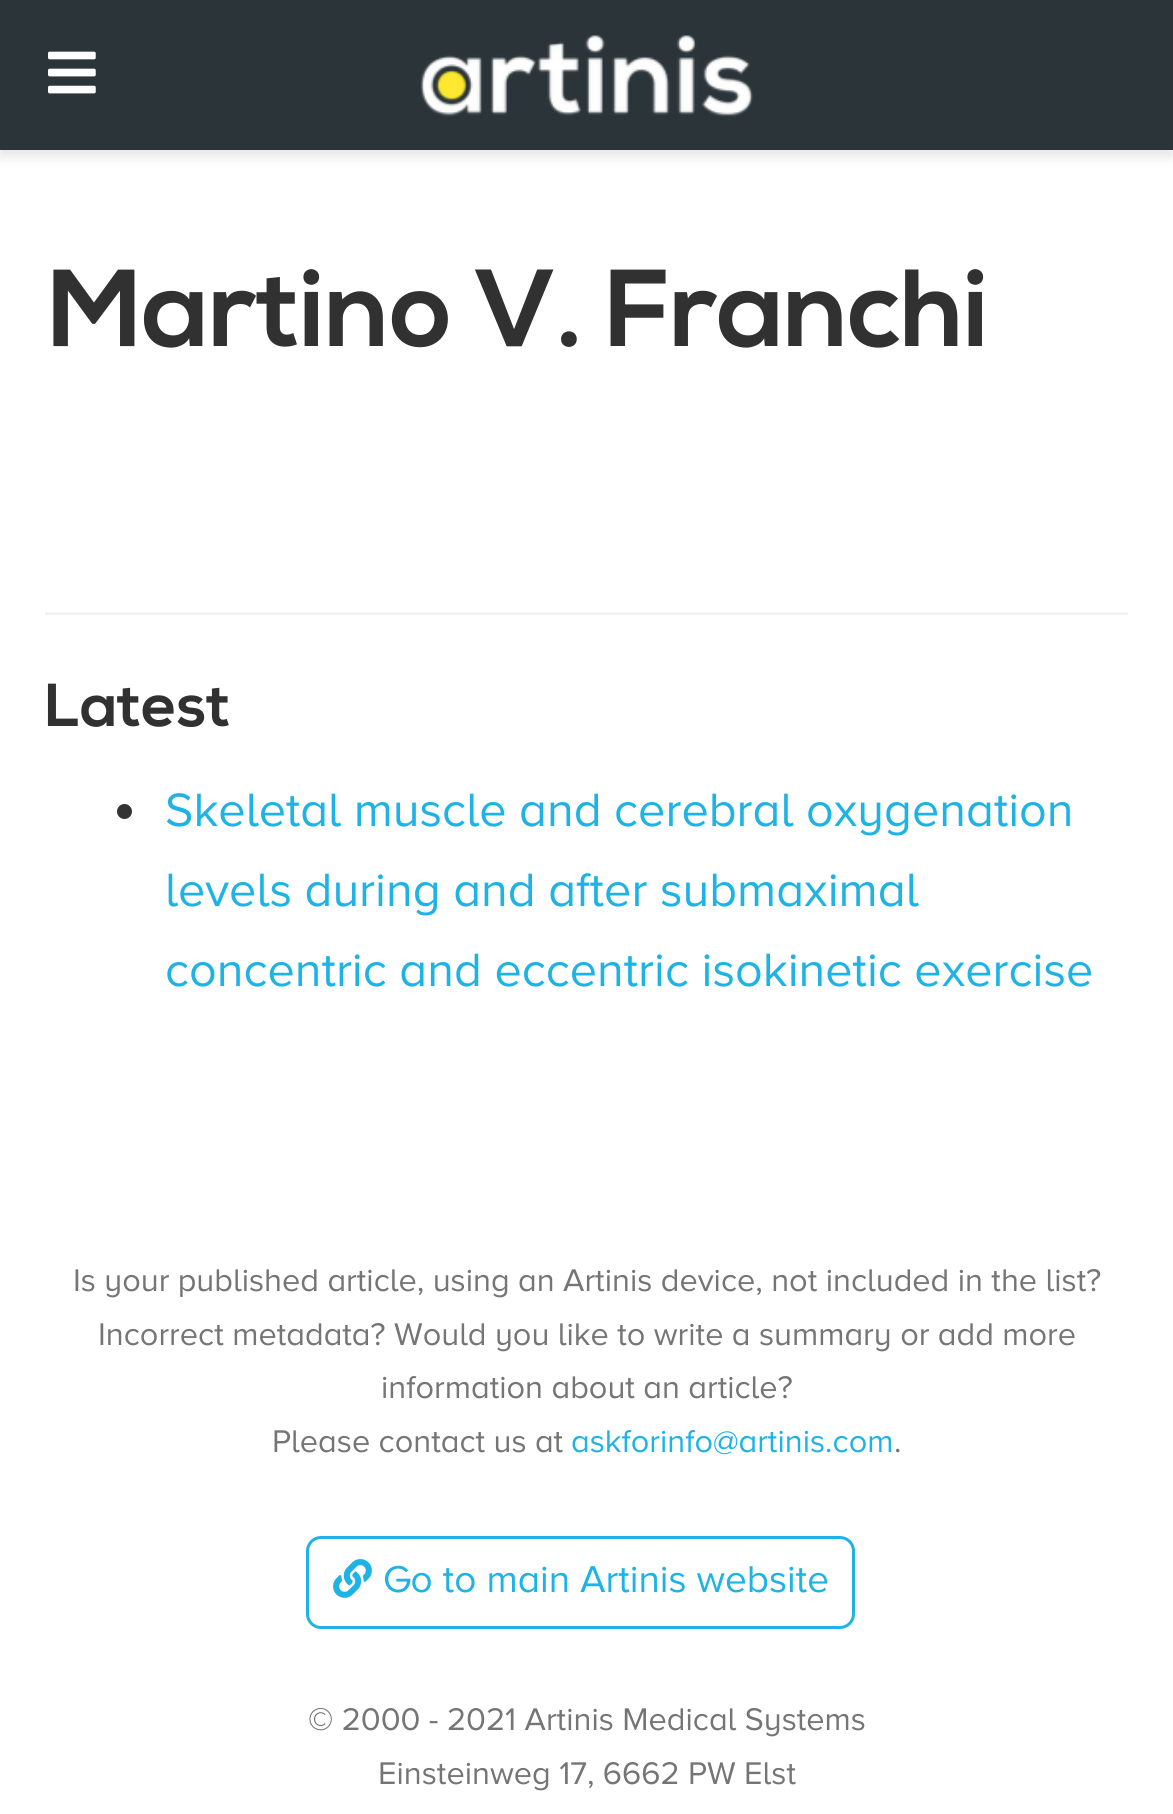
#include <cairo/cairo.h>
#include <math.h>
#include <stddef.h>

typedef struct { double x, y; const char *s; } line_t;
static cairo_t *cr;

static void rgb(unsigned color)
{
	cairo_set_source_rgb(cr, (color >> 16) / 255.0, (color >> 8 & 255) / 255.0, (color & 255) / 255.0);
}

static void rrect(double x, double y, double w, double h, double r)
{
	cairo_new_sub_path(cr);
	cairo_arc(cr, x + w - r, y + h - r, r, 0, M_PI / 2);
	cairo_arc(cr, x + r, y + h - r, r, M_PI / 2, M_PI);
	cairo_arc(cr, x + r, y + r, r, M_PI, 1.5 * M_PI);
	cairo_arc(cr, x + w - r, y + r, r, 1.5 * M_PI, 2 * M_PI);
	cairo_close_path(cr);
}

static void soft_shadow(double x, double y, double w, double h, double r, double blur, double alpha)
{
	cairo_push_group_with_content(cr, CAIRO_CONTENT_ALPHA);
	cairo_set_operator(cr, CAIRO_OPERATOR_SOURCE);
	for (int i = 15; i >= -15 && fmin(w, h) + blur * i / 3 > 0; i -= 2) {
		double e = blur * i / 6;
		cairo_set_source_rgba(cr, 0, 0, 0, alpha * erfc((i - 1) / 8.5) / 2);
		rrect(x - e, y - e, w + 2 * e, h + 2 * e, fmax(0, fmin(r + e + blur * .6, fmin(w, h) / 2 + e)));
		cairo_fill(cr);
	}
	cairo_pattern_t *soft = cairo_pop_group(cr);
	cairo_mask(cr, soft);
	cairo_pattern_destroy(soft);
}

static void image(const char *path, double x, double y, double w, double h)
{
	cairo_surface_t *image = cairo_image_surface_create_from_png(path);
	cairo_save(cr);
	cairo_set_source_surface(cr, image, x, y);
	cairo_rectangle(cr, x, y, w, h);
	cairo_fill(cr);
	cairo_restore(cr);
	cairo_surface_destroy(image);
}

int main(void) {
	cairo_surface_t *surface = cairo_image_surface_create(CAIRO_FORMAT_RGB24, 1173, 1814);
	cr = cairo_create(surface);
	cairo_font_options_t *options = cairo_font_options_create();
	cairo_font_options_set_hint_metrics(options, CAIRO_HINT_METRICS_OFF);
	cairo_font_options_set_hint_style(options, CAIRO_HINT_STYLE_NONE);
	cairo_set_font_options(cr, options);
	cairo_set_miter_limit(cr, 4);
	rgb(0xffffff);
	cairo_paint(cr);
	rgb(0x000000);
	soft_shadow(0, 6, 1173, 150, 0, 6, 0.11);
	rgb(0x2a3439);
	cairo_rectangle(cr, 0, 0, 1173, 150);
	cairo_fill(cr);
	image("img/1.png", 48, 51, 48, 43);
	image("img/2.png", 420, 35, 333, 82);
	rgb(0xf2f2f2);
	cairo_rectangle(cr, 45, 612, 1083, 3);
	cairo_fill(cr);
	rgb(0x333333);
	cairo_arc(cr, 124.5, 811.5, 7.5, 0, 2 * M_PI);
	cairo_fill(cr);
	rrect(307.5, 1537.5, 546, 90, 13.5);
	rgb(0x1fb3e5);
	cairo_set_line_width(cr, 3);
	cairo_stroke(cr);
	image("img/3.png", 333, 1559, 39, 39);
	cairo_select_font_face(cr, "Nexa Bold", CAIRO_FONT_SLANT_NORMAL, CAIRO_FONT_WEIGHT_BOLD);
	cairo_set_font_size(cr, 109.25);
	rgb(0x313131);
	cairo_move_to(cr, 48, 346);
	cairo_show_text(cr, "Martino V. Franchi");
	cairo_set_font_size(cr, 60.5);
	cairo_move_to(cr, 45, 726);
	cairo_show_text(cr, "Latest");
	cairo_select_font_face(cr, "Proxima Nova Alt", CAIRO_FONT_SLANT_NORMAL, CAIRO_FONT_WEIGHT_NORMAL);
	cairo_set_font_size(cr, 48.5);
	rgb(0x1fb3e5);
	{
		static const line_t items[] = {
			{165, 826, "Skeletal muscle and cerebral oxygenation"},
			{165, 906, "levels during and after submaximal"},
			{165, 986, "concentric and eccentric isokinetic exercise"},
		};
		for (size_t i = 0; i < sizeof items / sizeof *items; i++) {
			cairo_move_to(cr, items[i].x, items[i].y);
			cairo_show_text(cr, items[i].s);
		}
	}
	cairo_set_font_size(cr, 32.5);
	rgb(0x757575);
	{
		static const line_t items[] = {
			{73, 1291, "Is your published article, using an Artinis device, not included in the list?"},
			{98, 1345, "Incorrect metadata? Would you like to write a summary or add more"},
			{381, 1398, "information about an article?"},
			{272, 1452, "Please contact us at"},
		};
		for (size_t i = 0; i < sizeof items / sizeof *items; i++) {
			cairo_move_to(cr, items[i].x, items[i].y);
			cairo_show_text(cr, items[i].s);
		}
	}
	rgb(0x1fb3e5);
	cairo_move_to(cr, 571, 1452);
	cairo_show_text(cr, "askforinfo@artinis.com");
	rgb(0x757575);
	cairo_move_to(cr, 894, 1452);
	cairo_show_text(cr, ".");
	cairo_set_font_size(cr, 38.75);
	rgb(0x1fb3e5);
	cairo_move_to(cr, 383, 1592);
	cairo_show_text(cr, "Go to main Artinis website");
	cairo_set_font_size(cr, 32.5);
	rgb(0x757575);
	cairo_move_to(cr, 308, 1730);
	cairo_show_text(cr, "© 2000 - 2021 Artinis Medical Systems");
	cairo_move_to(cr, 378, 1784);
	cairo_show_text(cr, "Einsteinweg 17, 6662 PW Elst");
	cairo_surface_write_to_png(surface, "page.png");
	cairo_font_options_destroy(options);
	cairo_destroy(cr);
	cairo_surface_destroy(surface);
	return 0;
}
